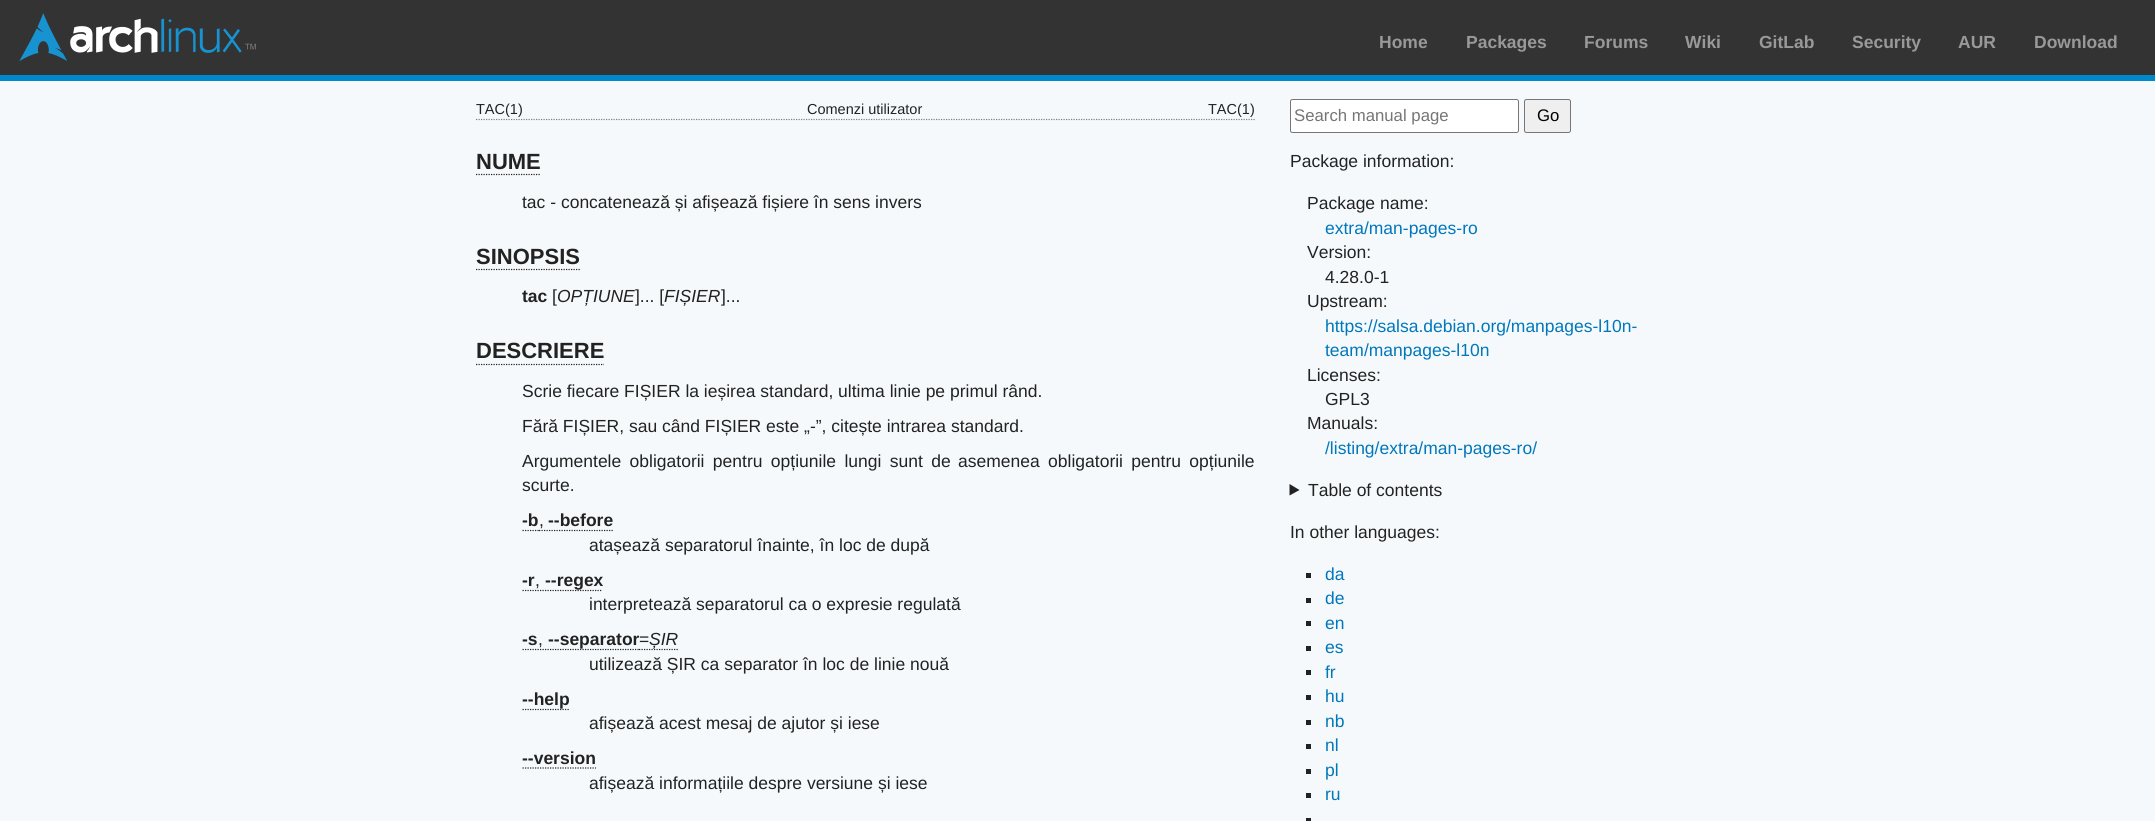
#include <cairo/cairo.h>
#include <math.h>
#include <stddef.h>

typedef struct { double x, y; const char *s; } line_t;
typedef struct { double x, y, w, h; unsigned color; } box_t;
static cairo_t *cr;

static void rgb(unsigned color)
{
	cairo_set_source_rgb(cr, (color >> 16) / 255.0, (color >> 8 & 255) / 255.0, (color & 255) / 255.0);
}

static void tracked(double x, double y, const char *s, double letter, double word)
{
	cairo_move_to(cr, x, y);
	while (*s) {
		char ch[5] = {0};
		int n = 0;
		do ch[n++] = *s++; while ((*s & 0xC0) == 0x80);
		cairo_show_text(cr, ch);
		cairo_rel_move_to(cr, letter + word * (*ch == ' '), 0);
	}
}

static void rrect(double x, double y, double w, double h, double r)
{
	cairo_new_sub_path(cr);
	cairo_arc(cr, x + w - r, y + h - r, r, 0, M_PI / 2);
	cairo_arc(cr, x + r, y + h - r, r, M_PI / 2, M_PI);
	cairo_arc(cr, x + r, y + r, r, M_PI, 1.5 * M_PI);
	cairo_arc(cr, x + w - r, y + r, r, 1.5 * M_PI, 2 * M_PI);
	cairo_close_path(cr);
}

static void image(const char *path, double x, double y, double w, double h)
{
	cairo_surface_t *image = cairo_image_surface_create_from_png(path);
	cairo_save(cr);
	cairo_set_source_surface(cr, image, x, y);
	cairo_rectangle(cr, x, y, w, h);
	cairo_fill(cr);
	cairo_restore(cr);
	cairo_surface_destroy(image);
}

int main(void) {
	cairo_surface_t *surface = cairo_image_surface_create(CAIRO_FORMAT_RGB24, 2155, 821);
	cr = cairo_create(surface);
	cairo_font_options_t *options = cairo_font_options_create();
	cairo_font_options_set_hint_metrics(options, CAIRO_HINT_METRICS_OFF);
	cairo_font_options_set_hint_style(options, CAIRO_HINT_STYLE_NONE);
	cairo_set_font_options(cr, options);
	cairo_set_miter_limit(cr, 4);
	rgb(0xf6f9fc);
	cairo_paint(cr);
	rgb(0x333333);
	cairo_rectangle(cr, 0, 0, 2155, 75);
	cairo_fill(cr);
	rgb(0x0088cc);
	cairo_rectangle(cr, 0, 75, 2155, 6);
	cairo_fill(cr);
	image("img/1.png", 19, 13, 237, 48);
	cairo_new_path(cr);
	cairo_move_to(cr, 476, 119.5);
	cairo_line_to(cr, 1255, 119.5);
	rgb(0x808080);
	cairo_set_line_width(cr, 1.2);
	cairo_set_dash(cr, (double[]){1.25, 1.25}, 2, 0);
	cairo_stroke(cr);
	cairo_new_path(cr);
	cairo_move_to(cr, 476, 174.5);
	cairo_line_to(cr, 540, 174.5);
	rgb(0x222222);
	cairo_stroke(cr);
	cairo_new_path(cr);
	cairo_move_to(cr, 476, 269.5);
	cairo_line_to(cr, 580, 269.5);
	cairo_stroke(cr);
	cairo_new_path(cr);
	cairo_move_to(cr, 476, 364.5);
	cairo_line_to(cr, 604, 364.5);
	cairo_stroke(cr);
	cairo_new_path(cr);
	cairo_move_to(cr, 522.5, 530.5);
	cairo_line_to(cr, 539, 530.5);
	cairo_move_to(cr, 539, 530.5);
	cairo_line_to(cr, 549, 530.5);
	cairo_stroke(cr);
	cairo_new_path(cr);
	cairo_move_to(cr, 549, 530.5);
	cairo_line_to(cr, 614, 530.5);
	cairo_stroke(cr);
	cairo_new_path(cr);
	cairo_move_to(cr, 522.5, 590.5);
	cairo_line_to(cr, 535, 590.5);
	cairo_move_to(cr, 535, 590.5);
	cairo_line_to(cr, 545, 590.5);
	cairo_stroke(cr);
	cairo_new_path(cr);
	cairo_move_to(cr, 545, 590.5);
	cairo_line_to(cr, 602.5, 590.5);
	cairo_stroke(cr);
	cairo_new_path(cr);
	cairo_move_to(cr, 639, 649.5);
	cairo_line_to(cr, 649, 649.5);
	cairo_move_to(cr, 649, 649.5);
	cairo_line_to(cr, 679, 649.5);
	cairo_stroke(cr);
	cairo_new_path(cr);
	cairo_move_to(cr, 522.5, 649.5);
	cairo_line_to(cr, 537.5, 649.5);
	cairo_move_to(cr, 537.5, 649.5);
	cairo_line_to(cr, 547.5, 649.5);
	cairo_stroke(cr);
	cairo_new_path(cr);
	cairo_move_to(cr, 547.5, 649.5);
	cairo_line_to(cr, 639, 649.5);
	cairo_stroke(cr);
	cairo_new_path(cr);
	cairo_move_to(cr, 522.5, 709.5);
	cairo_line_to(cr, 570, 709.5);
	cairo_stroke(cr);
	cairo_new_path(cr);
	cairo_move_to(cr, 522.5, 768);
	cairo_line_to(cr, 596, 768);
	cairo_stroke(cr);
	rgb(0xffffff);
	rrect(1290.5, 99.5, 228, 33, 2);
	cairo_fill_preserve(cr);
	rgb(0x767676);
	cairo_set_line_width(cr, 1);
	cairo_set_dash(cr, NULL, 0, 0);
	cairo_stroke(cr);
	rgb(0xefefef);
	rrect(1524.5, 99.5, 46, 33, 2);
	cairo_fill_preserve(cr);
	rgb(0x767676);
	cairo_stroke(cr);
	rgb(0x222222);
	cairo_new_path(cr);
	cairo_move_to(cr, 1289.5, 484);
	cairo_line_to(cr, 1299.5, 490);
	cairo_line_to(cr, 1289.5, 495.5);
	cairo_close_path(cr);
	cairo_fill(cr);
	{
		static const box_t items[] = {
			{1306, 573, 5, 5, 0x222222},
			{1306, 598, 5, 5, 0x222222},
			{1306, 621, 5, 5, 0x222222},
			{1306, 646, 5, 5, 0x222222},
			{1306, 670, 5, 5, 0x222222},
			{1306, 695, 5, 5, 0x222222},
			{1306, 720, 5, 5, 0x222222},
			{1306, 744, 5, 5, 0x222222},
			{1306, 769, 5, 5, 0x222222},
			{1306, 793, 5, 5, 0x222222},
			{1306, 818, 5, 3, 0x222222},
		};
		for (size_t i = 0; i < sizeof items / sizeof *items; i++) {
			rgb(items[i].color);
			cairo_rectangle(cr, items[i].x, items[i].y, items[i].w, items[i].h);
			cairo_fill(cr);
		}
	}
	cairo_select_font_face(cr, "Liberation Sans", CAIRO_FONT_SLANT_NORMAL, CAIRO_FONT_WEIGHT_BOLD);
	cairo_set_font_size(cr, 17.5);
	rgb(0x999999);
	{
		static const line_t items[] = {
			{1379, 48, "Home"},
			{1466, 48, "Packages"},
			{1584, 48, "Forums"},
			{1685, 48, "Wiki"},
			{1759, 48, "GitLab"},
			{1852, 48, "Security"},
			{1958, 48, "AUR"},
			{2034, 48, "Download"},
		};
		for (size_t i = 0; i < sizeof items / sizeof *items; i++) {
			cairo_move_to(cr, items[i].x, items[i].y);
			cairo_show_text(cr, items[i].s);
		}
	}
	cairo_select_font_face(cr, "Liberation Sans", CAIRO_FONT_SLANT_NORMAL, CAIRO_FONT_WEIGHT_NORMAL);
	cairo_set_font_size(cr, 14.5);
	rgb(0x222222);
	{
		static const line_t items[] = {
			{476, 114, "TAC(1)"},
			{807, 114, "Comenzi utilizator"},
			{1208, 114, "TAC(1)"},
		};
		for (size_t i = 0; i < sizeof items / sizeof *items; i++) {
			cairo_move_to(cr, items[i].x, items[i].y);
			cairo_show_text(cr, items[i].s);
		}
	}
	cairo_select_font_face(cr, "Liberation Sans", CAIRO_FONT_SLANT_NORMAL, CAIRO_FONT_WEIGHT_BOLD);
	cairo_set_font_size(cr, 22);
	cairo_move_to(cr, 476, 169);
	cairo_show_text(cr, "NUME");
	cairo_select_font_face(cr, "Liberation Sans", CAIRO_FONT_SLANT_NORMAL, CAIRO_FONT_WEIGHT_NORMAL);
	cairo_set_font_size(cr, 17.5);
	cairo_move_to(cr, 522, 208);
	cairo_show_text(cr, "tac - concatenează și afișează fișiere în sens invers");
	cairo_select_font_face(cr, "Liberation Sans", CAIRO_FONT_SLANT_NORMAL, CAIRO_FONT_WEIGHT_BOLD);
	cairo_set_font_size(cr, 22);
	cairo_move_to(cr, 476, 264);
	cairo_show_text(cr, "SINOPSIS");
	cairo_set_font_size(cr, 17.5);
	cairo_move_to(cr, 522, 302);
	cairo_show_text(cr, "tac");
	cairo_select_font_face(cr, "Liberation Sans", CAIRO_FONT_SLANT_NORMAL, CAIRO_FONT_WEIGHT_NORMAL);
	cairo_move_to(cr, 552, 302);
	cairo_show_text(cr, "[");
	cairo_select_font_face(cr, "Liberation Sans", CAIRO_FONT_SLANT_ITALIC, CAIRO_FONT_WEIGHT_NORMAL);
	cairo_move_to(cr, 557, 302);
	cairo_show_text(cr, "OPȚIUNE");
	cairo_select_font_face(cr, "Liberation Sans", CAIRO_FONT_SLANT_NORMAL, CAIRO_FONT_WEIGHT_NORMAL);
	cairo_move_to(cr, 635, 302);
	cairo_show_text(cr, "]... [");
	cairo_select_font_face(cr, "Liberation Sans", CAIRO_FONT_SLANT_ITALIC, CAIRO_FONT_WEIGHT_NORMAL);
	cairo_move_to(cr, 664, 302);
	cairo_show_text(cr, "FIȘIER");
	cairo_select_font_face(cr, "Liberation Sans", CAIRO_FONT_SLANT_NORMAL, CAIRO_FONT_WEIGHT_NORMAL);
	cairo_move_to(cr, 721, 302);
	cairo_show_text(cr, "]...");
	cairo_select_font_face(cr, "Liberation Sans", CAIRO_FONT_SLANT_NORMAL, CAIRO_FONT_WEIGHT_BOLD);
	cairo_set_font_size(cr, 22);
	cairo_move_to(cr, 476, 358);
	cairo_show_text(cr, "DESCRIERE");
	cairo_select_font_face(cr, "Liberation Sans", CAIRO_FONT_SLANT_NORMAL, CAIRO_FONT_WEIGHT_NORMAL);
	cairo_set_font_size(cr, 17.5);
	cairo_move_to(cr, 522, 397);
	cairo_show_text(cr, "Scrie fiecare FIȘIER la ieșirea standard, ultima linie pe primul rând.");
	cairo_move_to(cr, 522, 432);
	cairo_show_text(cr, "Fără FIȘIER, sau când FIȘIER este „-”, citește intrarea standard.");
	tracked(522, 467, "Argumentele obligatorii pentru opțiunile lungi sunt de", 0, 3.5);
	tracked(958, 467, "asemenea obligatorii pentru opțiunile", 0, 3.5);
	cairo_move_to(cr, 522, 491);
	cairo_show_text(cr, "scurte.");
	cairo_select_font_face(cr, "Liberation Sans", CAIRO_FONT_SLANT_NORMAL, CAIRO_FONT_WEIGHT_BOLD);
	cairo_move_to(cr, 522, 526);
	cairo_show_text(cr, "-b");
	cairo_select_font_face(cr, "Liberation Sans", CAIRO_FONT_SLANT_NORMAL, CAIRO_FONT_WEIGHT_NORMAL);
	cairo_move_to(cr, 539, 526);
	cairo_show_text(cr, ",");
	cairo_select_font_face(cr, "Liberation Sans", CAIRO_FONT_SLANT_NORMAL, CAIRO_FONT_WEIGHT_BOLD);
	cairo_move_to(cr, 548, 526);
	cairo_show_text(cr, "--before");
	cairo_select_font_face(cr, "Liberation Sans", CAIRO_FONT_SLANT_NORMAL, CAIRO_FONT_WEIGHT_NORMAL);
	cairo_move_to(cr, 589, 551);
	cairo_show_text(cr, "atașează separatorul înainte, în loc de după");
	cairo_select_font_face(cr, "Liberation Sans", CAIRO_FONT_SLANT_NORMAL, CAIRO_FONT_WEIGHT_BOLD);
	cairo_move_to(cr, 522, 586);
	cairo_show_text(cr, "-r");
	cairo_select_font_face(cr, "Liberation Sans", CAIRO_FONT_SLANT_NORMAL, CAIRO_FONT_WEIGHT_NORMAL);
	cairo_move_to(cr, 535, 586);
	cairo_show_text(cr, ",");
	cairo_select_font_face(cr, "Liberation Sans", CAIRO_FONT_SLANT_NORMAL, CAIRO_FONT_WEIGHT_BOLD);
	cairo_move_to(cr, 545, 586);
	cairo_show_text(cr, "--regex");
	cairo_select_font_face(cr, "Liberation Sans", CAIRO_FONT_SLANT_NORMAL, CAIRO_FONT_WEIGHT_NORMAL);
	cairo_move_to(cr, 589, 610);
	cairo_show_text(cr, "interpretează separatorul ca o expresie regulată");
	cairo_select_font_face(cr, "Liberation Sans", CAIRO_FONT_SLANT_NORMAL, CAIRO_FONT_WEIGHT_BOLD);
	cairo_move_to(cr, 522, 645);
	cairo_show_text(cr, "-s");
	cairo_move_to(cr, 548, 645);
	cairo_show_text(cr, "--separator");
	cairo_select_font_face(cr, "Liberation Sans", CAIRO_FONT_SLANT_NORMAL, CAIRO_FONT_WEIGHT_NORMAL);
	cairo_move_to(cr, 639, 645);
	cairo_show_text(cr, "=");
	cairo_select_font_face(cr, "Liberation Sans", CAIRO_FONT_SLANT_ITALIC, CAIRO_FONT_WEIGHT_NORMAL);
	cairo_move_to(cr, 649, 645);
	cairo_show_text(cr, "ȘIR");
	cairo_select_font_face(cr, "Liberation Sans", CAIRO_FONT_SLANT_NORMAL, CAIRO_FONT_WEIGHT_NORMAL);
	cairo_move_to(cr, 538, 645);
	cairo_show_text(cr, ",");
	cairo_move_to(cr, 589, 670);
	cairo_show_text(cr, "utilizează ȘIR ca separator în loc de linie nouă");
	cairo_select_font_face(cr, "Liberation Sans", CAIRO_FONT_SLANT_NORMAL, CAIRO_FONT_WEIGHT_BOLD);
	cairo_move_to(cr, 522, 705);
	cairo_show_text(cr, "--help");
	cairo_select_font_face(cr, "Liberation Sans", CAIRO_FONT_SLANT_NORMAL, CAIRO_FONT_WEIGHT_NORMAL);
	cairo_move_to(cr, 589, 729);
	cairo_show_text(cr, "afișează acest mesaj de ajutor și iese");
	cairo_select_font_face(cr, "Liberation Sans", CAIRO_FONT_SLANT_NORMAL, CAIRO_FONT_WEIGHT_BOLD);
	cairo_move_to(cr, 522, 764);
	cairo_show_text(cr, "--version");
	cairo_select_font_face(cr, "Liberation Sans", CAIRO_FONT_SLANT_NORMAL, CAIRO_FONT_WEIGHT_NORMAL);
	cairo_move_to(cr, 589, 789);
	cairo_show_text(cr, "afișează informațiile despre versiune și iese");
	cairo_set_font_size(cr, 16.75);
	rgb(0x757575);
	cairo_move_to(cr, 1294, 121);
	cairo_show_text(cr, "Search manual page");
	rgb(0x000000);
	cairo_move_to(cr, 1537, 121);
	cairo_show_text(cr, "Go");
	cairo_set_font_size(cr, 17.5);
	rgb(0x222222);
	cairo_move_to(cr, 1290, 167);
	cairo_show_text(cr, "Package information:");
	cairo_move_to(cr, 1307, 209);
	cairo_show_text(cr, "Package name:");
	rgb(0x0077bb);
	cairo_move_to(cr, 1325, 234);
	cairo_show_text(cr, "extra/man-pages-ro");
	rgb(0x222222);
	{
		static const line_t items[] = {
			{1307, 258, "Version:"},
			{1325, 283, "4.28.0-1"},
			{1307, 307, "Upstream:"},
		};
		for (size_t i = 0; i < sizeof items / sizeof *items; i++) {
			cairo_move_to(cr, items[i].x, items[i].y);
			cairo_show_text(cr, items[i].s);
		}
	}
	rgb(0x0077bb);
	cairo_move_to(cr, 1325, 332);
	cairo_show_text(cr, "https://salsa.debian.org/manpages-l10n-");
	cairo_move_to(cr, 1325, 356);
	cairo_show_text(cr, "team/manpages-l10n");
	rgb(0x222222);
	{
		static const line_t items[] = {
			{1307, 381, "Licenses:"},
			{1325, 405, "GPL3"},
			{1307, 429, "Manuals:"},
		};
		for (size_t i = 0; i < sizeof items / sizeof *items; i++) {
			cairo_move_to(cr, items[i].x, items[i].y);
			cairo_show_text(cr, items[i].s);
		}
	}
	rgb(0x0077bb);
	cairo_move_to(cr, 1325, 454);
	cairo_show_text(cr, "/listing/extra/man-pages-ro/");
	rgb(0x222222);
	cairo_move_to(cr, 1308, 496);
	cairo_show_text(cr, "Table of contents");
	cairo_move_to(cr, 1290, 538);
	cairo_show_text(cr, "In other languages:");
	rgb(0x0077bb);
	{
		static const line_t items[] = {
			{1325, 580, "da"},
			{1325, 604, "de"},
			{1325, 629, "en"},
			{1325, 653, "es"},
			{1325, 678, "fr"},
			{1325, 702, "hu"},
			{1325, 727, "nb"},
			{1325, 751, "nl"},
			{1325, 776, "pl"},
			{1325, 800, "ru"},
		};
		for (size_t i = 0; i < sizeof items / sizeof *items; i++) {
			cairo_move_to(cr, items[i].x, items[i].y);
			cairo_show_text(cr, items[i].s);
		}
	}
	cairo_surface_write_to_png(surface, "page.png");
	cairo_font_options_destroy(options);
	cairo_destroy(cr);
	cairo_surface_destroy(surface);
	return 0;
}
